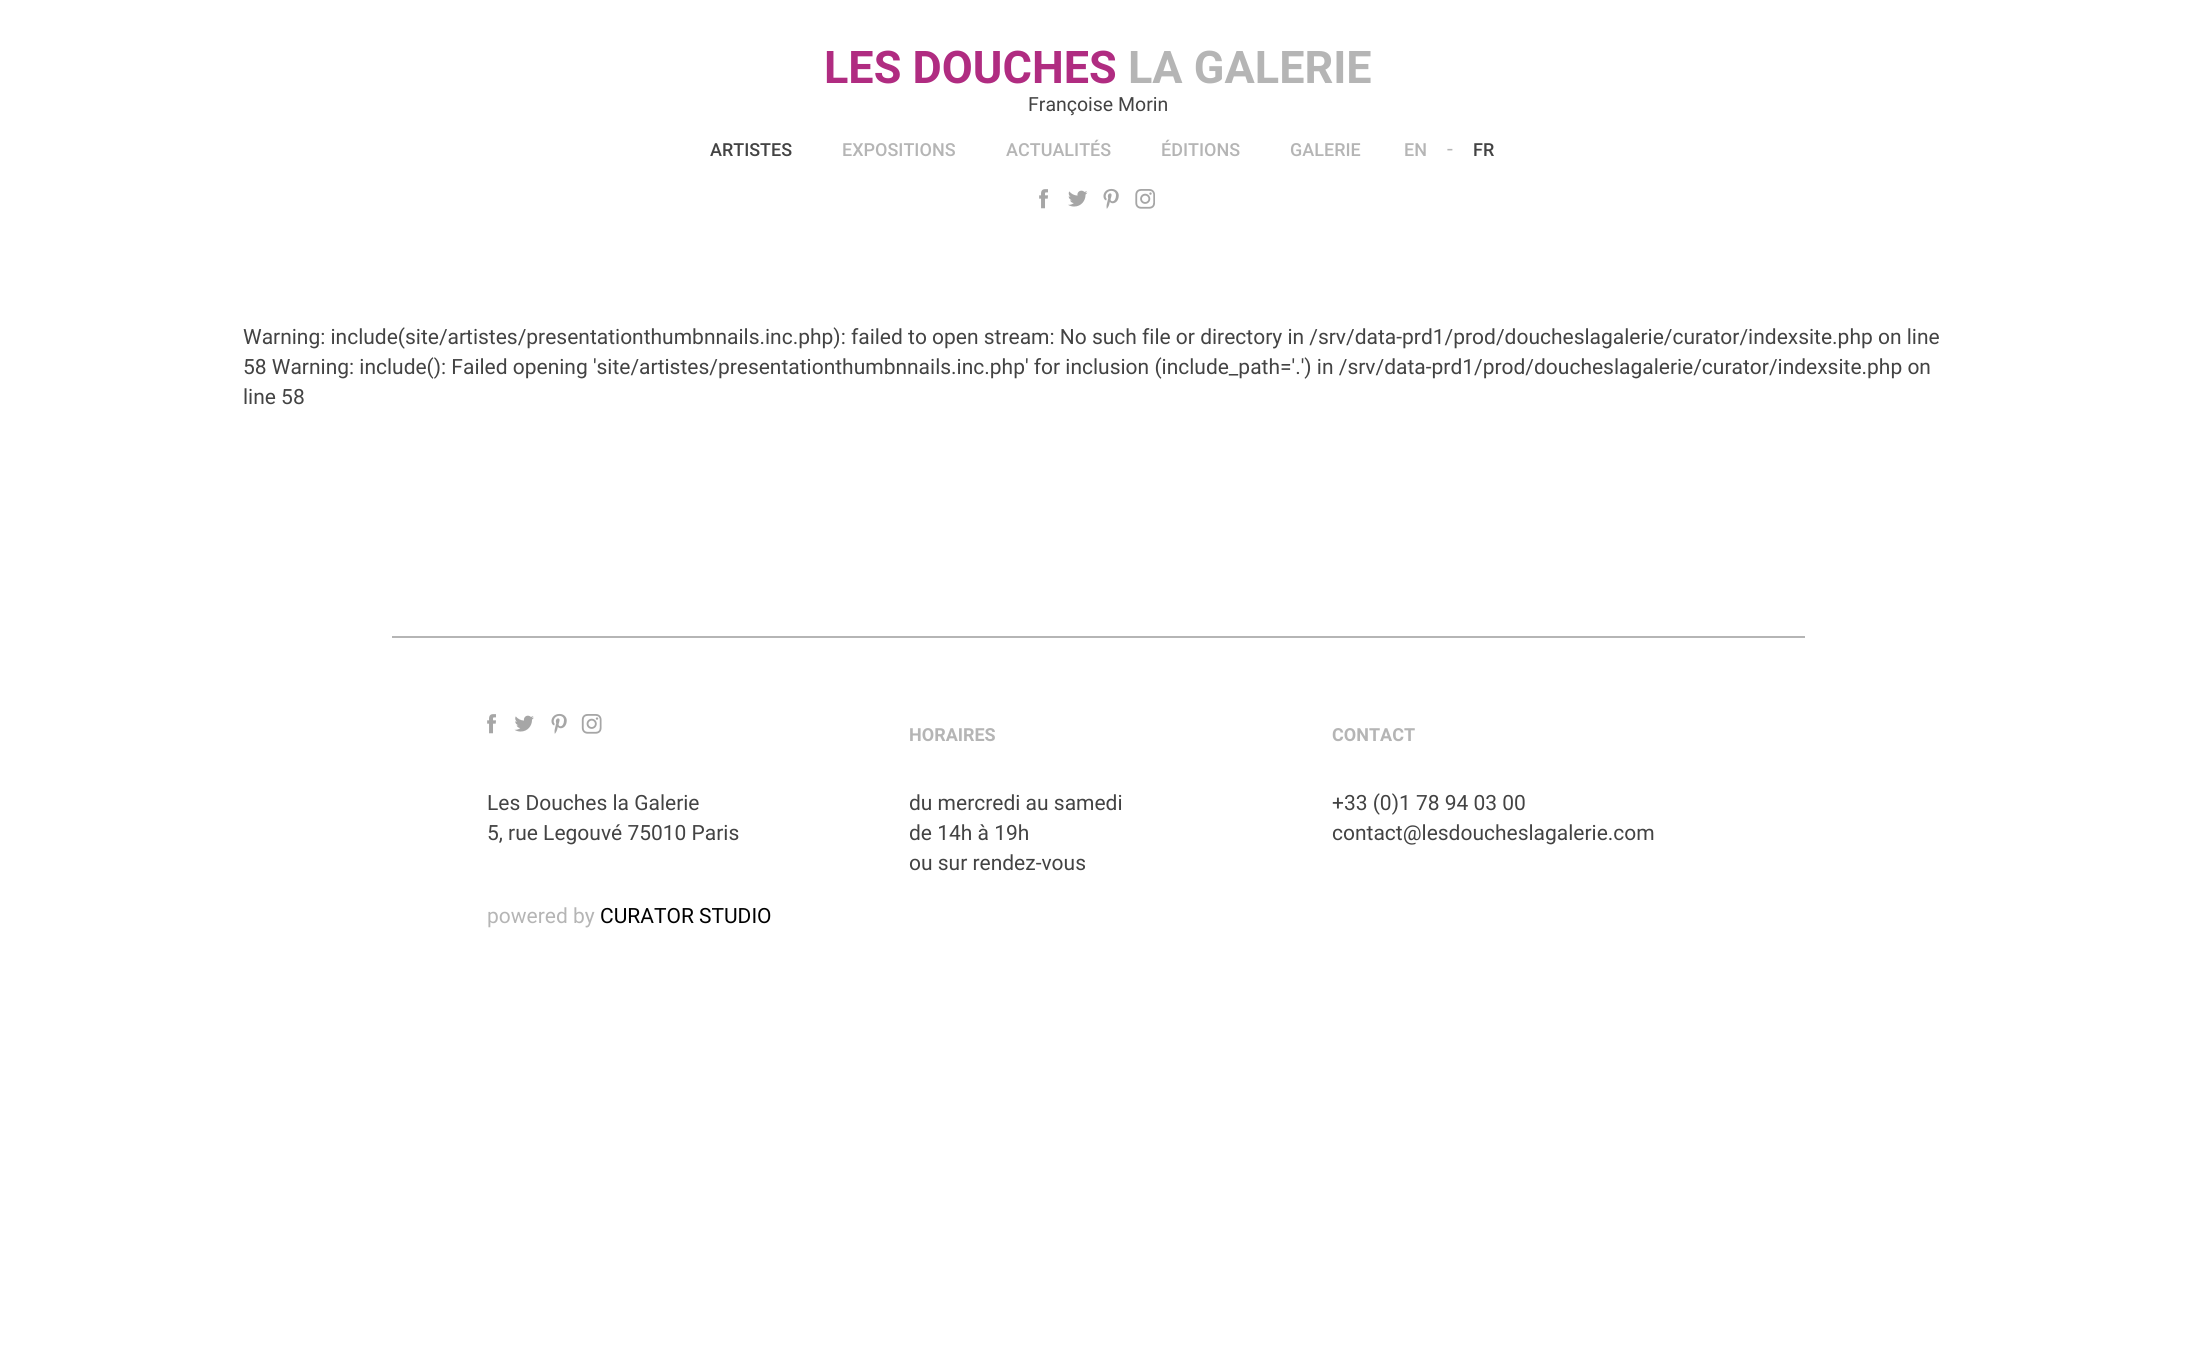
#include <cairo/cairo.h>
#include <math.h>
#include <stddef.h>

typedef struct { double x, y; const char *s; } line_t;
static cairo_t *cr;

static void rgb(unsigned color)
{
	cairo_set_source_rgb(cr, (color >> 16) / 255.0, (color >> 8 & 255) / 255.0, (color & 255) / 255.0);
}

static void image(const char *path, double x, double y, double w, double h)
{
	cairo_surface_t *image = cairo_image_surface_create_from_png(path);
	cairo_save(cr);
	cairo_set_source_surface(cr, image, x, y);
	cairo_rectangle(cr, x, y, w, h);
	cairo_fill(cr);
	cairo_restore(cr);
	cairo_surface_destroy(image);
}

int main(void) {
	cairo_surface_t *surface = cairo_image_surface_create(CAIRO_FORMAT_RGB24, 2195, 1352);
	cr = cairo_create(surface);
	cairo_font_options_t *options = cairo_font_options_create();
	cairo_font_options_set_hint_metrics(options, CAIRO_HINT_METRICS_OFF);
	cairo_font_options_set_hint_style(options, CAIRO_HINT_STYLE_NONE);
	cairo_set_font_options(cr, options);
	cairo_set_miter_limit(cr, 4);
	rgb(0xffffff);
	cairo_paint(cr);
	image("img/1.png", 1039, 189, 9, 20);
	image("img/2.png", 1068, 190, 20, 17);
	image("img/3.png", 1103, 188, 16, 21);
	image("img/4.png", 1135, 189, 20, 20);
	rgb(0xb5b5b5);
	cairo_rectangle(cr, 392, 636, 1413, 2);
	cairo_fill(cr);
	image("img/1.png", 487, 714, 9, 20);
	image("img/5.png", 514, 715, 20, 17);
	image("img/3.png", 551, 713, 16, 21);
	image("img/6.png", 581, 714, 21, 20);
	cairo_select_font_face(cr, "Roboto", CAIRO_FONT_SLANT_NORMAL, CAIRO_FONT_WEIGHT_BOLD);
	cairo_set_font_size(cr, 45);
	rgb(0xb02c81);
	cairo_move_to(cr, 824, 83);
	cairo_show_text(cr, "LES DOUCHES");
	rgb(0xb5b5b5);
	cairo_move_to(cr, 1128, 83);
	cairo_show_text(cr, "LA GALERIE");
	cairo_select_font_face(cr, "Roboto", CAIRO_FONT_SLANT_NORMAL, CAIRO_FONT_WEIGHT_NORMAL);
	cairo_set_font_size(cr, 19.5);
	rgb(0x434343);
	cairo_move_to(cr, 1028, 111);
	cairo_show_text(cr, "Françoise Morin");
	cairo_select_font_face(cr, "Roboto Medium", CAIRO_FONT_SLANT_NORMAL, CAIRO_FONT_WEIGHT_NORMAL);
	cairo_set_font_size(cr, 18);
	cairo_move_to(cr, 710, 156);
	cairo_show_text(cr, "ARTISTES");
	rgb(0xb5b5b5);
	{
		static const line_t items[] = {
			{842, 156, "EXPOSITIONS"},
			{1006, 156, "ACTUALITÉS"},
			{1161, 156, "ÉDITIONS"},
			{1290, 156, "GALERIE"},
			{1404, 156, "EN"},
		};
		for (size_t i = 0; i < sizeof items / sizeof *items; i++) {
			cairo_move_to(cr, items[i].x, items[i].y);
			cairo_show_text(cr, items[i].s);
		}
	}
	cairo_select_font_face(cr, "Roboto", CAIRO_FONT_SLANT_NORMAL, CAIRO_FONT_WEIGHT_NORMAL);
	cairo_set_font_size(cr, 21);
	cairo_move_to(cr, 1447, 156);
	cairo_show_text(cr, "-");
	cairo_select_font_face(cr, "Roboto Medium", CAIRO_FONT_SLANT_NORMAL, CAIRO_FONT_WEIGHT_NORMAL);
	cairo_set_font_size(cr, 18);
	rgb(0x434343);
	cairo_move_to(cr, 1473, 156);
	cairo_show_text(cr, "FR");
	cairo_select_font_face(cr, "Roboto", CAIRO_FONT_SLANT_NORMAL, CAIRO_FONT_WEIGHT_NORMAL);
	cairo_set_font_size(cr, 21);
	{
		static const line_t items[] = {
			{243, 344, "Warning: include(site/artistes/presentationthumbnnails.inc.php): failed to open stream: No such file or directory in /srv/data-prd1/prod/doucheslagalerie/curator/indexsite.php on line"},
			{243, 374, "58 Warning: include(): Failed opening 'site/artistes/presentationthumbnnails.inc.php' for inclusion (include_path='.') in /srv/data-prd1/prod/doucheslagalerie/curator/indexsite.php on"},
			{243, 404, "line 58"},
			{487, 810, "Les Douches la Galerie"},
			{487, 840, "5, rue Legouvé 75010 Paris"},
		};
		for (size_t i = 0; i < sizeof items / sizeof *items; i++) {
			cairo_move_to(cr, items[i].x, items[i].y);
			cairo_show_text(cr, items[i].s);
		}
	}
	rgb(0xb5b5b5);
	cairo_move_to(cr, 487, 923);
	cairo_show_text(cr, "powered by");
	rgb(0x000000);
	cairo_move_to(cr, 600, 923);
	cairo_show_text(cr, "CURATOR STUDIO");
	cairo_select_font_face(cr, "Roboto", CAIRO_FONT_SLANT_NORMAL, CAIRO_FONT_WEIGHT_BOLD);
	cairo_set_font_size(cr, 18);
	rgb(0xb5b5b5);
	cairo_move_to(cr, 909, 741);
	cairo_show_text(cr, "HORAIRES");
	cairo_select_font_face(cr, "Roboto", CAIRO_FONT_SLANT_NORMAL, CAIRO_FONT_WEIGHT_NORMAL);
	cairo_set_font_size(cr, 21);
	rgb(0x434343);
	{
		static const line_t items[] = {
			{909, 810, "du mercredi au samedi"},
			{909, 840, "de 14h à 19h"},
			{909, 870, "ou sur rendez-vous"},
		};
		for (size_t i = 0; i < sizeof items / sizeof *items; i++) {
			cairo_move_to(cr, items[i].x, items[i].y);
			cairo_show_text(cr, items[i].s);
		}
	}
	cairo_select_font_face(cr, "Roboto", CAIRO_FONT_SLANT_NORMAL, CAIRO_FONT_WEIGHT_BOLD);
	cairo_set_font_size(cr, 18);
	rgb(0xb5b5b5);
	cairo_move_to(cr, 1332, 741);
	cairo_show_text(cr, "CONTACT");
	cairo_select_font_face(cr, "Roboto", CAIRO_FONT_SLANT_NORMAL, CAIRO_FONT_WEIGHT_NORMAL);
	cairo_set_font_size(cr, 21);
	rgb(0x434343);
	cairo_move_to(cr, 1332, 810);
	cairo_show_text(cr, "+33 (0)1 78 94 03 00");
	cairo_move_to(cr, 1332, 840);
	cairo_show_text(cr, "contact@lesdoucheslagalerie.com");
	cairo_surface_write_to_png(surface, "page.png");
	cairo_font_options_destroy(options);
	cairo_destroy(cr);
	cairo_surface_destroy(surface);
	return 0;
}
